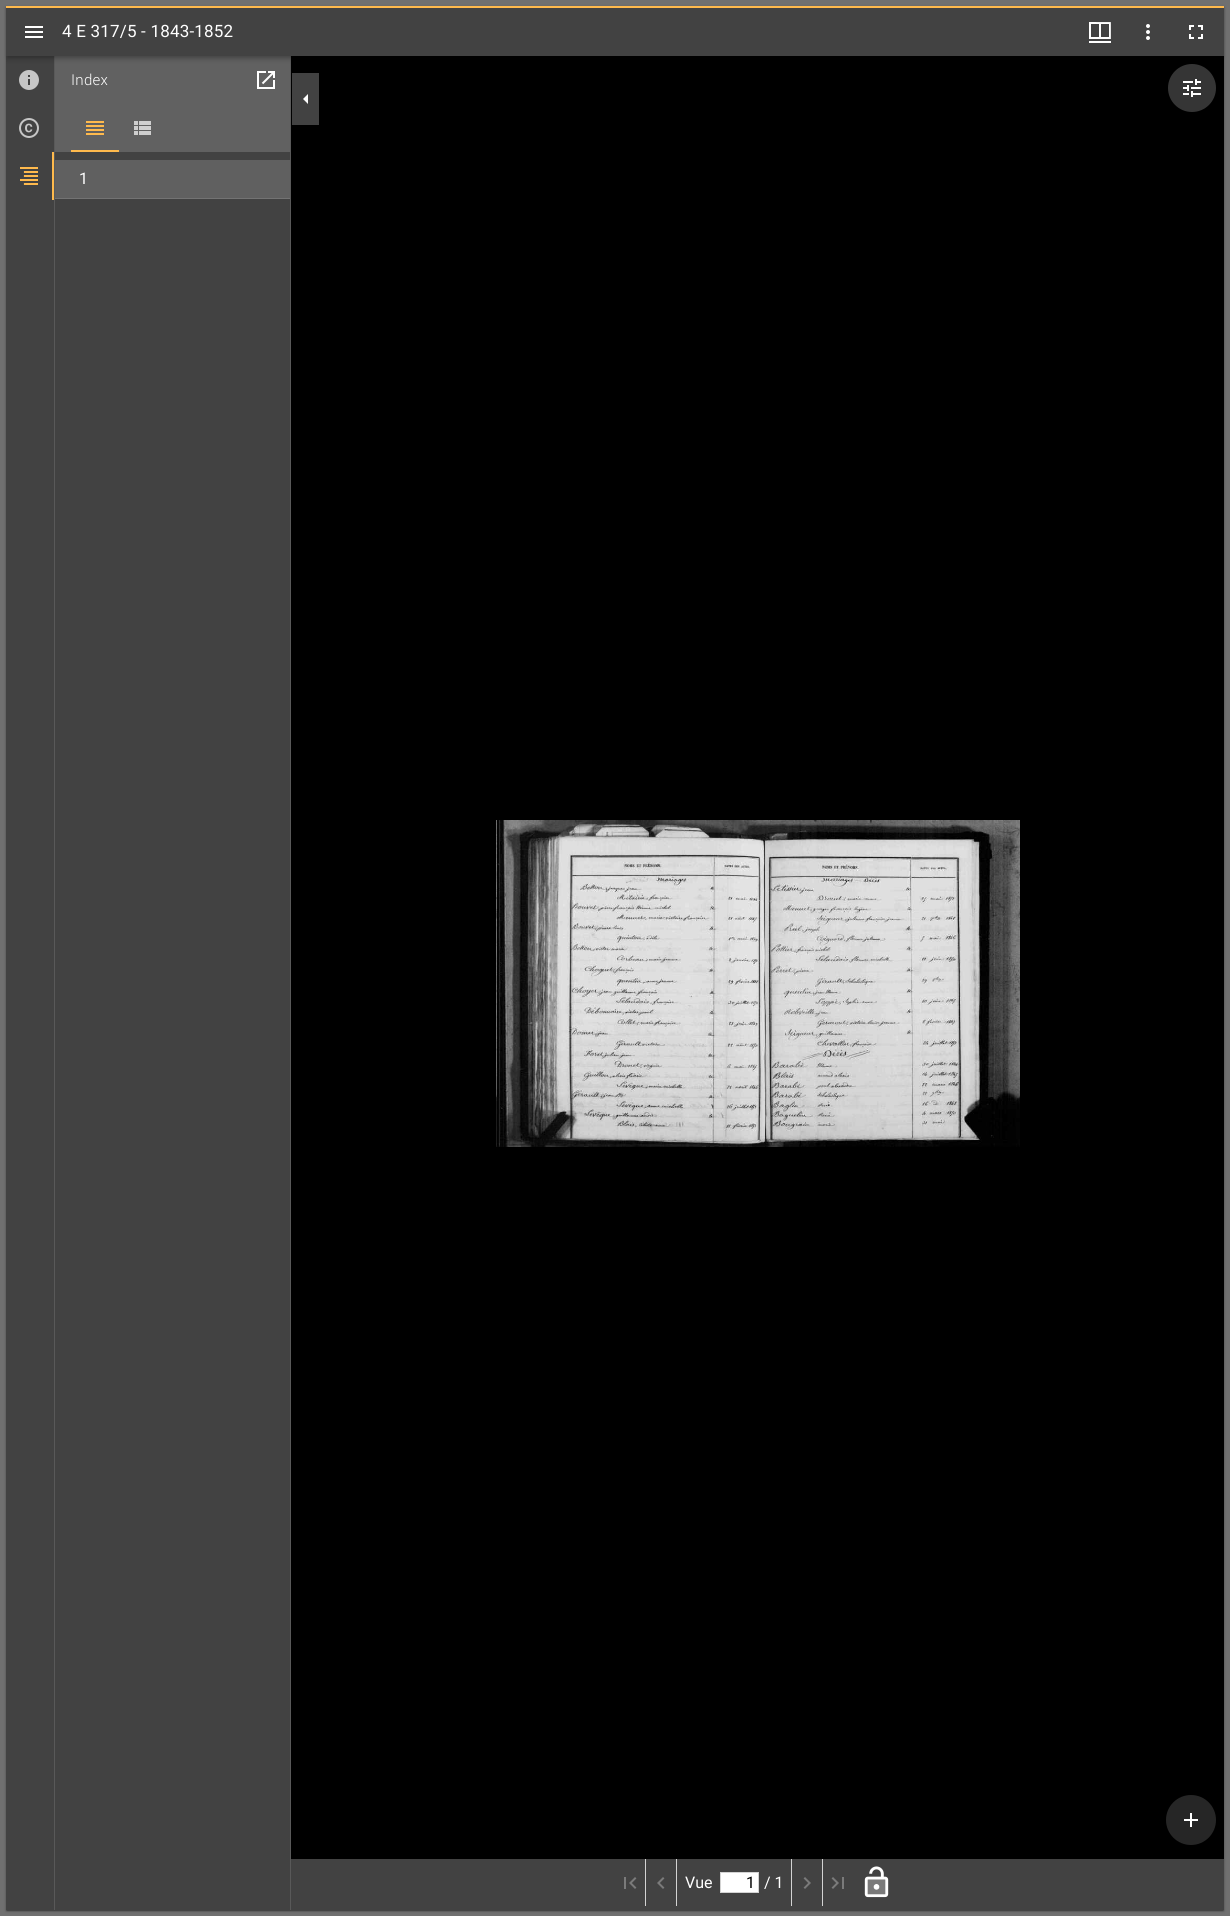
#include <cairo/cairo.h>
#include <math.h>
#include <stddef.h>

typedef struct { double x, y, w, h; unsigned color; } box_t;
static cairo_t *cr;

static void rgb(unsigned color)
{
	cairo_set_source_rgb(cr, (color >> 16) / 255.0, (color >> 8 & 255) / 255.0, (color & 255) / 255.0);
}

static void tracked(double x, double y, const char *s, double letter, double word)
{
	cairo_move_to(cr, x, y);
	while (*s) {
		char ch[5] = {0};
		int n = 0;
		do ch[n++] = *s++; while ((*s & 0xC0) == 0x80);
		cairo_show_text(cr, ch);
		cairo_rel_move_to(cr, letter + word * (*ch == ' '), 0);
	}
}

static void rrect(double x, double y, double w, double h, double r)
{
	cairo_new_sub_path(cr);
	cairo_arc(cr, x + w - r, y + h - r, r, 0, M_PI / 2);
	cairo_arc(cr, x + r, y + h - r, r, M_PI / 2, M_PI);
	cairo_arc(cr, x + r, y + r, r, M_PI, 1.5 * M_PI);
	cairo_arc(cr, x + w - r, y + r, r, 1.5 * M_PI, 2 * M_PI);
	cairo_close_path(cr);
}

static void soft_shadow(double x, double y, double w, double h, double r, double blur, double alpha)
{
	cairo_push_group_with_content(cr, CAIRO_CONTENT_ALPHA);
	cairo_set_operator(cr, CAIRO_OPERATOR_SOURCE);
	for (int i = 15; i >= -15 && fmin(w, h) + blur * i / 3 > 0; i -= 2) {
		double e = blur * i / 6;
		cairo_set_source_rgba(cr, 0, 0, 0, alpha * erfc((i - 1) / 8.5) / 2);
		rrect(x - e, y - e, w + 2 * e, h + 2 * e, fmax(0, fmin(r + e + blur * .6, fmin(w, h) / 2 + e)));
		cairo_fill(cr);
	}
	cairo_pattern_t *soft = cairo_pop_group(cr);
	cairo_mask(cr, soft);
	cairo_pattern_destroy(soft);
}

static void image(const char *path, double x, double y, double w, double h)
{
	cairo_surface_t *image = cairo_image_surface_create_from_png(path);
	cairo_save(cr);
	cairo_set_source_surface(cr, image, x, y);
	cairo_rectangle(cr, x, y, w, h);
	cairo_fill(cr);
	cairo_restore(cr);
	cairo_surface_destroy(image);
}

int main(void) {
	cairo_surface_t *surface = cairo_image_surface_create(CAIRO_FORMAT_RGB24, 1230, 1916);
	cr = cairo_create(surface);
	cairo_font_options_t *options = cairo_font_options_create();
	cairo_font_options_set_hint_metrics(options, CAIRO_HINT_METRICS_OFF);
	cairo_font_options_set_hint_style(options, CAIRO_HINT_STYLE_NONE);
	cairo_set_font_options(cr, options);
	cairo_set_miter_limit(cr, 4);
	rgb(0x707070);
	cairo_paint(cr);
	rgb(0x000000);
	soft_shadow(7, 9, 1216, 1902, 0, 0.5, 0.2);
	soft_shadow(6, 7, 1218, 1904, 0, 0.5, 0.2);
	soft_shadow(6, 7, 1218, 1904, 0, 1.5, 0.2);
	{
		static const box_t items[] = {
			{291, 56, 933, 1803, 0x000000},
			{6, 56, 48, 1854, 0x424242},
			{54, 56, 1, 1854, 0x595959},
			{290, 56, 1, 1854, 0x595959},
			{55, 56, 235, 96, 0x616161},
		};
		for (size_t i = 0; i < sizeof items / sizeof *items; i++) {
			rgb(items[i].color);
			cairo_rectangle(cr, items[i].x, items[i].y, items[i].w, items[i].h);
			cairo_fill(cr);
		}
	}
	rgb(0x353535);
	cairo_arc(cr, 1192, 88, 24, 0, 2 * M_PI);
	cairo_fill(cr);
	cairo_save(cr);
	cairo_rectangle(cr, 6, 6, 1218, 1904);
	cairo_clip(cr);
	rgb(0x000000);
	soft_shadow(6, 10, 1218, 50, 0, 2.5, 0.14);
	cairo_restore(cr);
	rgb(0x000000);
	soft_shadow(7, 9, 1216, 48, 0, 2, 0.2);
	rgb(0x424242);
	cairo_rectangle(cr, 6, 8, 1218, 48);
	cairo_fill(cr);
	rgb(0xffba4d);
	cairo_rectangle(cr, 6, 6, 1218, 2);
	cairo_fill(cr);
	image("img/1.png", 25, 26, 18, 12);
	image("img/2.png", 1089, 22, 22, 21);
	image("img/3.png", 1146, 24, 4, 16);
	image("img/4.png", 1189, 25, 14, 14);
	image("img/5.png", 19, 70, 20, 20);
	image("img/6.png", 19, 118, 20, 20);
	cairo_rectangle(cr, 52, 152, 2, 48);
	cairo_fill(cr);
	image("img/7.png", 20, 167, 18, 18);
	rgb(0x424242);
	cairo_rectangle(cr, 55, 152, 235, 1758);
	cairo_fill(cr);
	image("img/8.png", 257, 71, 18, 18);
	image("img/9.png", 86, 121, 18, 14);
	image("img/10.png", 134, 121, 17, 14);
	{
		static const box_t items[] = {
			{71, 150, 48, 2, 0xffba4d},
			{55, 160, 235, 38, 0x606060},
			{55, 198, 235, 1, 0x737373},
			{292, 73, 27, 52, 0x424242},
		};
		for (size_t i = 0; i < sizeof items / sizeof *items; i++) {
			rgb(items[i].color);
			cairo_rectangle(cr, items[i].x, items[i].y, items[i].w, items[i].h);
			cairo_fill(cr);
		}
	}
	rgb(0xffffff);
	cairo_new_path(cr);
	cairo_move_to(cr, 308, 94);
	cairo_line_to(cr, 303, 99);
	cairo_line_to(cr, 308, 104);
	cairo_close_path(cr);
	cairo_fill(cr);
	image("img/11.png", 1183, 79, 18, 18);
	image("img/12.png", 496, 820, 524, 327);
	rgb(0x262626);
	cairo_arc(cr, 1191, 1820, 25, 0, 2 * M_PI);
	cairo_fill(cr);
	image("img/13.png", 1184, 1813, 14, 14);
	rgb(0x424242);
	cairo_rectangle(cr, 291, 1859, 933, 51);
	cairo_fill(cr);
	image("img/14.png", 624, 1877, 13, 12);
	rgb(0xd3d3d3);
	cairo_rectangle(cr, 676, 1859, 1, 47);
	cairo_fill(cr);
	cairo_rectangle(cr, 645, 1859, 1, 47);
	cairo_fill(cr);
	image("img/15.png", 657, 1877, 8, 12);
	rgb(0xffffff);
	cairo_rectangle(cr, 720.5, 1872.5, 38, 20);
	cairo_fill_preserve(cr);
	rgb(0xd3d3d3);
	cairo_set_line_width(cr, 1);
	cairo_stroke(cr);
	cairo_rectangle(cr, 822, 1859, 1, 47);
	cairo_fill(cr);
	cairo_rectangle(cr, 791, 1859, 1, 47);
	cairo_fill(cr);
	image("img/16.png", 803, 1877, 8, 12);
	image("img/17.png", 831, 1877, 13, 12);
	image("img/18.png", 864, 1866, 25, 32);
	cairo_select_font_face(cr, "Roboto", CAIRO_FONT_SLANT_NORMAL, CAIRO_FONT_WEIGHT_NORMAL);
	cairo_set_font_size(cr, 17);
	rgb(0xffffff);
	tracked(62, 37, "4 E 317/5 - 1843-1852", 0.2, 0);
	cairo_select_font_face(cr, "Roboto Light", CAIRO_FONT_SLANT_NORMAL, CAIRO_FONT_WEIGHT_NORMAL);
	cairo_set_font_size(cr, 15);
	tracked(71, 85, "Index", 0.25, 0);
	cairo_select_font_face(cr, "Roboto", CAIRO_FONT_SLANT_NORMAL, CAIRO_FONT_WEIGHT_NORMAL);
	cairo_set_font_size(cr, 16);
	cairo_move_to(cr, 79, 184);
	cairo_show_text(cr, "1");
	cairo_move_to(cr, 685, 1888);
	cairo_show_text(cr, "Vue");
	rgb(0x000000);
	cairo_move_to(cr, 746, 1888);
	cairo_show_text(cr, "1");
	rgb(0xffffff);
	cairo_move_to(cr, 764, 1888);
	cairo_show_text(cr, "/ 1");
	cairo_surface_write_to_png(surface, "page.png");
	cairo_font_options_destroy(options);
	cairo_destroy(cr);
	cairo_surface_destroy(surface);
	return 0;
}
